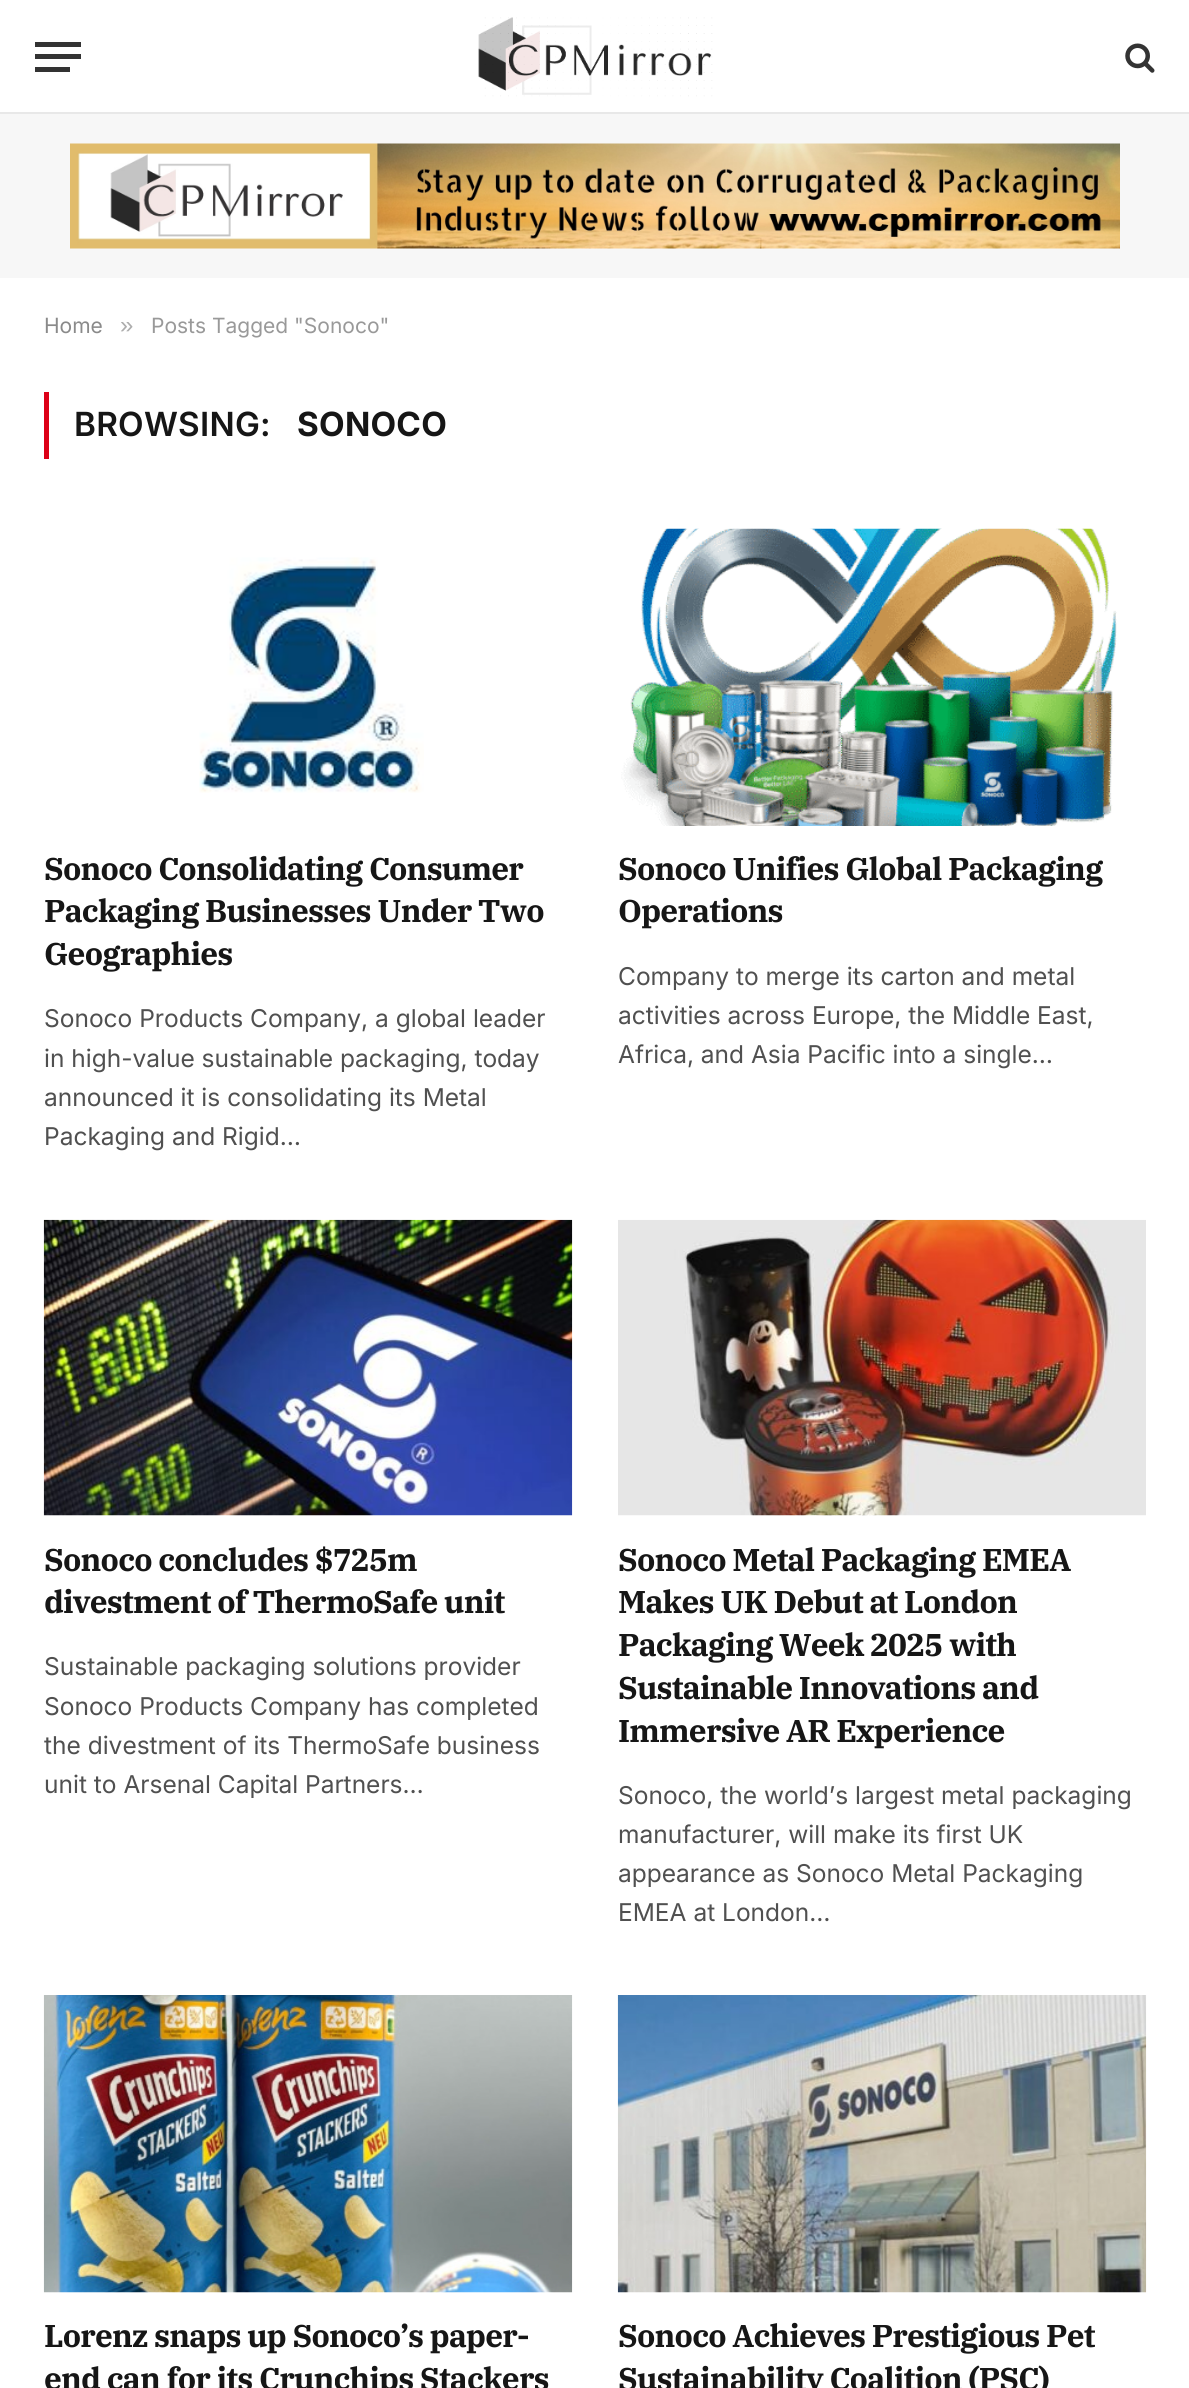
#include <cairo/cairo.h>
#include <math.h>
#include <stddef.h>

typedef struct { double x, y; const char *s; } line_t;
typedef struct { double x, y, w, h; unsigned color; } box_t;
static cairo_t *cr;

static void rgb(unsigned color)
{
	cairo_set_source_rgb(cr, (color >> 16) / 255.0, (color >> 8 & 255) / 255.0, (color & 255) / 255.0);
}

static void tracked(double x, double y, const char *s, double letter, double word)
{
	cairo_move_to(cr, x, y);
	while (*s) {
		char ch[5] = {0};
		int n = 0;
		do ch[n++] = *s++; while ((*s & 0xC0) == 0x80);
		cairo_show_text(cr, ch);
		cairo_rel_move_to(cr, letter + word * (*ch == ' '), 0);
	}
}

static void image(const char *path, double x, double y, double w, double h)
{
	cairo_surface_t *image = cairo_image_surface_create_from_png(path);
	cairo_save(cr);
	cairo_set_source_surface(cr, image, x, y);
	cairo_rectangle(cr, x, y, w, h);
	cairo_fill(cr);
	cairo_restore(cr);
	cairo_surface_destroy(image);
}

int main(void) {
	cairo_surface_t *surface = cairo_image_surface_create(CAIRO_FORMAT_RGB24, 1189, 2388);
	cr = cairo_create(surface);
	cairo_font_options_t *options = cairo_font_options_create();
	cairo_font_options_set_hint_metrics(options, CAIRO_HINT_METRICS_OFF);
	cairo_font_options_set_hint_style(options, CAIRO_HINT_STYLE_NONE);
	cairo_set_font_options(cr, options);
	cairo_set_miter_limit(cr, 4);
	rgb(0xffffff);
	cairo_paint(cr);
	{
		static const box_t items[] = {
			{0, 112, 1189, 2, 0xe8e8e8},
			{35, 67, 35, 5, 0x333333},
			{35, 42, 46, 5, 0x333333},
			{35, 54, 46, 5, 0x333333},
		};
		for (size_t i = 0; i < sizeof items / sizeof *items; i++) {
			rgb(items[i].color);
			cairo_rectangle(cr, items[i].x, items[i].y, items[i].w, items[i].h);
			cairo_fill(cr);
		}
	}
	image("img/1.png", 478, 17, 235, 80);
	image("img/2.png", 1125, 43, 30, 30);
	rgb(0xf7f7f7);
	cairo_rectangle(cr, 0, 114, 1189, 164);
	cairo_fill(cr);
	image("img/3.png", 70, 143, 1050, 106);
	rgb(0xdd0017);
	cairo_rectangle(cr, 44, 392, 5, 67);
	cairo_fill(cr);
	image("img/4.png", 199, 557, 225, 236);
	image("img/5.png", 621, 528, 496, 298);
	image("img/6.png", 43, 1219, 530, 297);
	image("img/7.png", 618, 1219, 528, 297);
	image("img/8.png", 43, 1995, 530, 298);
	image("img/9.png", 617, 1995, 530, 298);
	cairo_select_font_face(cr, "Inter", CAIRO_FONT_SLANT_NORMAL, CAIRO_FONT_WEIGHT_NORMAL);
	cairo_set_font_size(cr, 21);
	rgb(0x8a8a8a);
	cairo_move_to(cr, 44, 333);
	cairo_show_text(cr, "Home");
	cairo_select_font_face(cr, "Liberation Sans", CAIRO_FONT_SLANT_NORMAL, CAIRO_FONT_WEIGHT_NORMAL);
	cairo_set_font_size(cr, 24);
	rgb(0xadadad);
	cairo_move_to(cr, 120, 333);
	cairo_show_text(cr, "»");
	cairo_select_font_face(cr, "Inter", CAIRO_FONT_SLANT_NORMAL, CAIRO_FONT_WEIGHT_NORMAL);
	cairo_set_font_size(cr, 21);
	rgb(0x999999);
	cairo_move_to(cr, 151, 333);
	cairo_show_text(cr, "Posts Tagged \"Sonoco\"");
	cairo_select_font_face(cr, "Inter SemiBold", CAIRO_FONT_SLANT_NORMAL, CAIRO_FONT_WEIGHT_NORMAL);
	cairo_set_font_size(cr, 33.25);
	rgb(0x161616);
	tracked(74, 436, "BROWSING:", 0.25, 0);
	cairo_select_font_face(cr, "Inter", CAIRO_FONT_SLANT_NORMAL, CAIRO_FONT_WEIGHT_BOLD);
	tracked(297, 436, "SONOCO", 0.25, 0);
	cairo_select_font_face(cr, "IBM Plex Serif", CAIRO_FONT_SLANT_NORMAL, CAIRO_FONT_WEIGHT_BOLD);
	cairo_set_font_size(cr, 31.5);
	{
		static const line_t items[] = {
			{44, 880, "Sonoco Consolidating Consumer"},
			{44, 922, "Packaging Businesses Under Two"},
			{44, 965, "Geographies"},
		};
		for (size_t i = 0; i < sizeof items / sizeof *items; i++) {
			tracked(items[i].x, items[i].y, items[i].s, -0.8, 0);
		}
	}
	cairo_select_font_face(cr, "Inter", CAIRO_FONT_SLANT_NORMAL, CAIRO_FONT_WEIGHT_NORMAL);
	cairo_set_font_size(cr, 24.5);
	rgb(0x505050);
	{
		static const line_t items[] = {
			{44, 1027, "Sonoco Products Company, a global leader"},
			{44, 1067, "in high-value sustainable packaging, today"},
			{44, 1106, "announced it is consolidating its Metal"},
			{44, 1145, "Packaging and Rigid…"},
		};
		for (size_t i = 0; i < sizeof items / sizeof *items; i++) {
			cairo_move_to(cr, items[i].x, items[i].y);
			cairo_show_text(cr, items[i].s);
		}
	}
	cairo_select_font_face(cr, "IBM Plex Serif", CAIRO_FONT_SLANT_NORMAL, CAIRO_FONT_WEIGHT_BOLD);
	cairo_set_font_size(cr, 31.5);
	rgb(0x161616);
	tracked(618, 880, "Sonoco Unifies Global Packaging", -0.8, 0);
	tracked(618, 922, "Operations", -0.8, 0);
	cairo_select_font_face(cr, "Inter", CAIRO_FONT_SLANT_NORMAL, CAIRO_FONT_WEIGHT_NORMAL);
	cairo_set_font_size(cr, 24.5);
	rgb(0x505050);
	{
		static const line_t items[] = {
			{618, 985, "Company to merge its carton and metal"},
			{618, 1024, "activities across Europe, the Middle East,"},
			{618, 1063, "Africa, and Asia Pacific into a single…"},
		};
		for (size_t i = 0; i < sizeof items / sizeof *items; i++) {
			cairo_move_to(cr, items[i].x, items[i].y);
			cairo_show_text(cr, items[i].s);
		}
	}
	cairo_select_font_face(cr, "IBM Plex Serif", CAIRO_FONT_SLANT_NORMAL, CAIRO_FONT_WEIGHT_BOLD);
	cairo_set_font_size(cr, 31.5);
	rgb(0x161616);
	tracked(44, 1571, "Sonoco concludes $725m", -0.8, 0);
	tracked(44, 1613, "divestment of ThermoSafe unit", -0.8, 0);
	cairo_select_font_face(cr, "Inter", CAIRO_FONT_SLANT_NORMAL, CAIRO_FONT_WEIGHT_NORMAL);
	cairo_set_font_size(cr, 24.5);
	rgb(0x505050);
	{
		static const line_t items[] = {
			{44, 1675, "Sustainable packaging solutions provider"},
			{44, 1715, "Sonoco Products Company has completed"},
			{44, 1754, "the divestment of its ThermoSafe business"},
			{44, 1793, "unit to Arsenal Capital Partners…"},
		};
		for (size_t i = 0; i < sizeof items / sizeof *items; i++) {
			cairo_move_to(cr, items[i].x, items[i].y);
			cairo_show_text(cr, items[i].s);
		}
	}
	cairo_select_font_face(cr, "IBM Plex Serif", CAIRO_FONT_SLANT_NORMAL, CAIRO_FONT_WEIGHT_BOLD);
	cairo_set_font_size(cr, 31.5);
	rgb(0x161616);
	{
		static const line_t items[] = {
			{618, 1571, "Sonoco Metal Packaging EMEA"},
			{618, 1613, "Makes UK Debut at London"},
			{618, 1656, "Packaging Week 2025 with"},
			{618, 1699, "Sustainable Innovations and"},
			{618, 1742, "Immersive AR Experience"},
		};
		for (size_t i = 0; i < sizeof items / sizeof *items; i++) {
			tracked(items[i].x, items[i].y, items[i].s, -0.8, 0);
		}
	}
	cairo_select_font_face(cr, "Inter", CAIRO_FONT_SLANT_NORMAL, CAIRO_FONT_WEIGHT_NORMAL);
	cairo_set_font_size(cr, 24.5);
	rgb(0x505050);
	{
		static const line_t items[] = {
			{618, 1804, "Sonoco, the world’s largest metal packaging"},
			{618, 1843, "manufacturer, will make its first UK"},
			{618, 1882, "appearance as Sonoco Metal Packaging"},
			{618, 1921, "EMEA at London…"},
		};
		for (size_t i = 0; i < sizeof items / sizeof *items; i++) {
			cairo_move_to(cr, items[i].x, items[i].y);
			cairo_show_text(cr, items[i].s);
		}
	}
	cairo_select_font_face(cr, "IBM Plex Serif", CAIRO_FONT_SLANT_NORMAL, CAIRO_FONT_WEIGHT_BOLD);
	cairo_set_font_size(cr, 31.5);
	rgb(0x161616);
	{
		static const line_t items[] = {
			{44, 2347, "Lorenz snaps up Sonoco’s paper-"},
			{44, 2390, "end can for its Crunchips Stackers"},
			{618, 2347, "Sonoco Achieves Prestigious Pet"},
			{618, 2390, "Sustainability Coalition (PSC)"},
		};
		for (size_t i = 0; i < sizeof items / sizeof *items; i++) {
			tracked(items[i].x, items[i].y, items[i].s, -0.8, 0);
		}
	}
	cairo_surface_write_to_png(surface, "page.png");
	cairo_font_options_destroy(options);
	cairo_destroy(cr);
	cairo_surface_destroy(surface);
	return 0;
}
